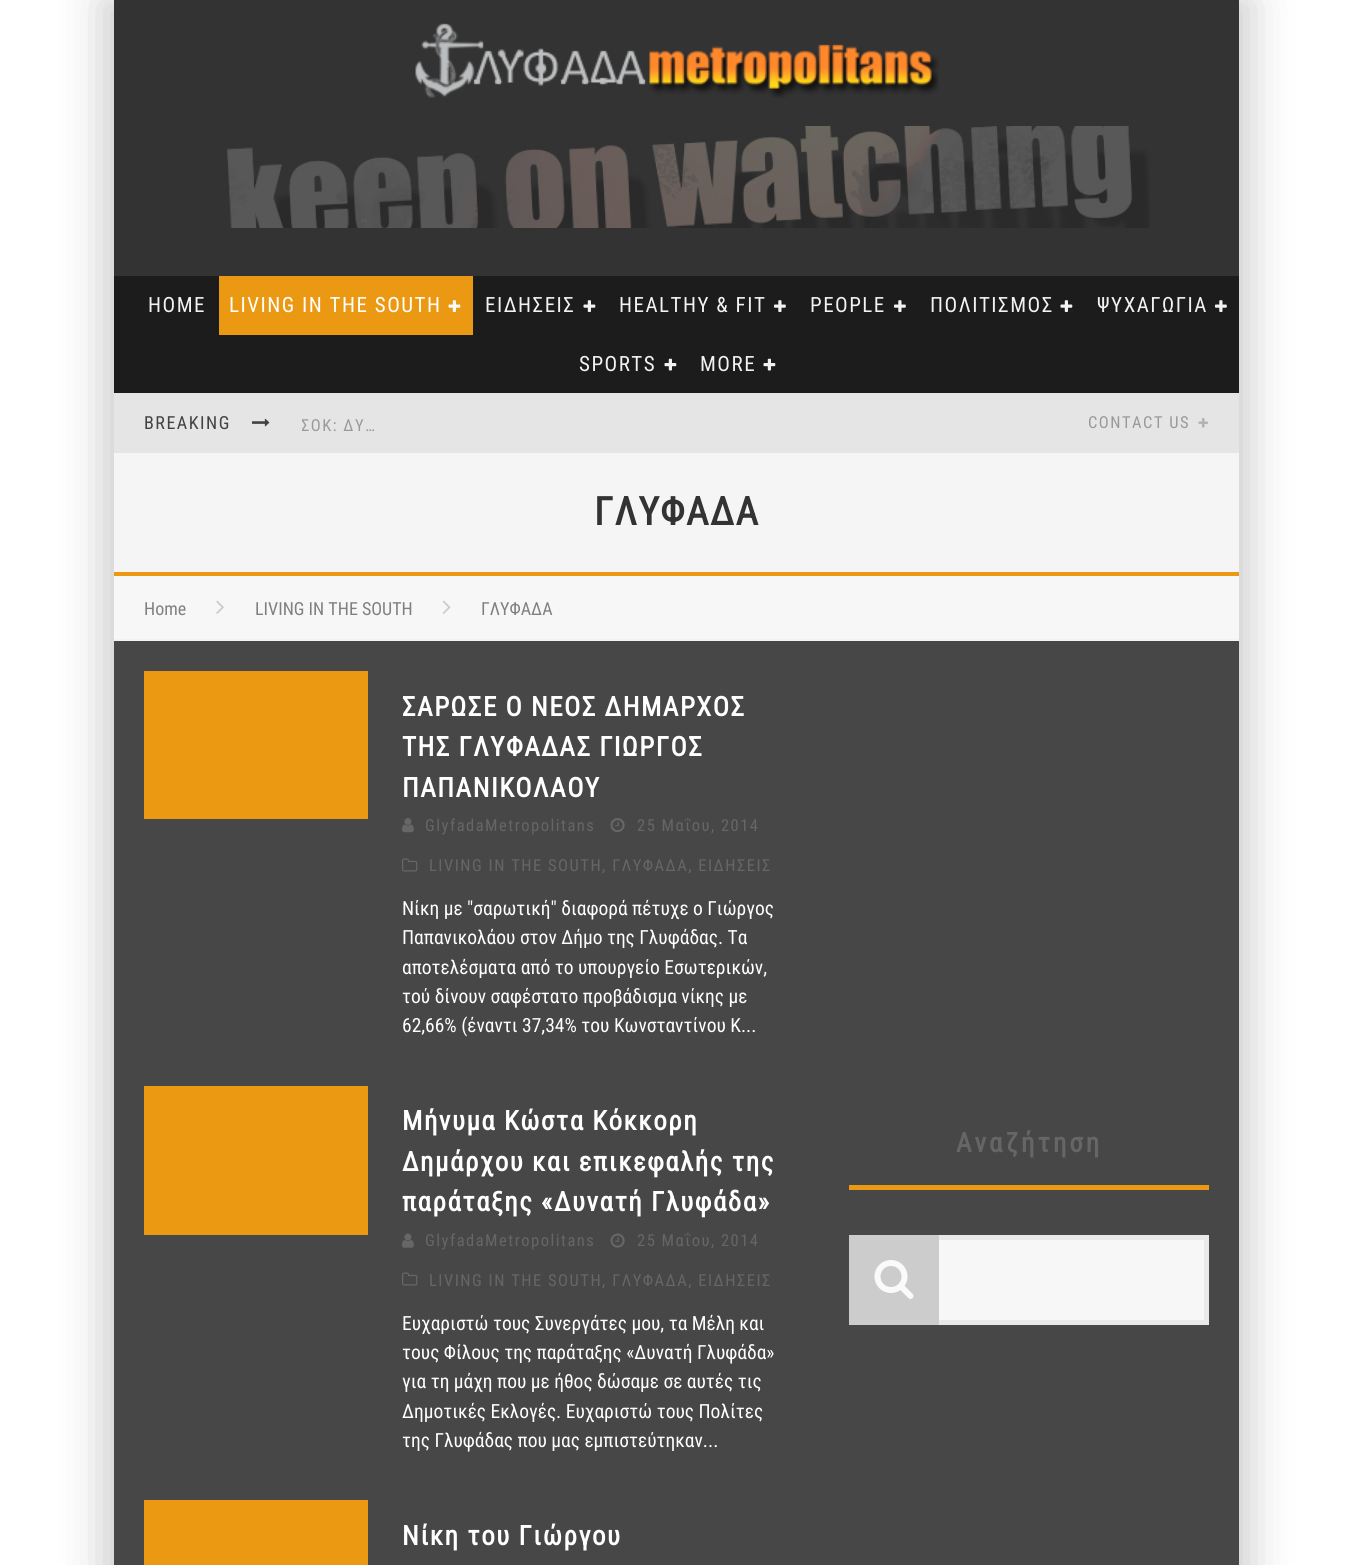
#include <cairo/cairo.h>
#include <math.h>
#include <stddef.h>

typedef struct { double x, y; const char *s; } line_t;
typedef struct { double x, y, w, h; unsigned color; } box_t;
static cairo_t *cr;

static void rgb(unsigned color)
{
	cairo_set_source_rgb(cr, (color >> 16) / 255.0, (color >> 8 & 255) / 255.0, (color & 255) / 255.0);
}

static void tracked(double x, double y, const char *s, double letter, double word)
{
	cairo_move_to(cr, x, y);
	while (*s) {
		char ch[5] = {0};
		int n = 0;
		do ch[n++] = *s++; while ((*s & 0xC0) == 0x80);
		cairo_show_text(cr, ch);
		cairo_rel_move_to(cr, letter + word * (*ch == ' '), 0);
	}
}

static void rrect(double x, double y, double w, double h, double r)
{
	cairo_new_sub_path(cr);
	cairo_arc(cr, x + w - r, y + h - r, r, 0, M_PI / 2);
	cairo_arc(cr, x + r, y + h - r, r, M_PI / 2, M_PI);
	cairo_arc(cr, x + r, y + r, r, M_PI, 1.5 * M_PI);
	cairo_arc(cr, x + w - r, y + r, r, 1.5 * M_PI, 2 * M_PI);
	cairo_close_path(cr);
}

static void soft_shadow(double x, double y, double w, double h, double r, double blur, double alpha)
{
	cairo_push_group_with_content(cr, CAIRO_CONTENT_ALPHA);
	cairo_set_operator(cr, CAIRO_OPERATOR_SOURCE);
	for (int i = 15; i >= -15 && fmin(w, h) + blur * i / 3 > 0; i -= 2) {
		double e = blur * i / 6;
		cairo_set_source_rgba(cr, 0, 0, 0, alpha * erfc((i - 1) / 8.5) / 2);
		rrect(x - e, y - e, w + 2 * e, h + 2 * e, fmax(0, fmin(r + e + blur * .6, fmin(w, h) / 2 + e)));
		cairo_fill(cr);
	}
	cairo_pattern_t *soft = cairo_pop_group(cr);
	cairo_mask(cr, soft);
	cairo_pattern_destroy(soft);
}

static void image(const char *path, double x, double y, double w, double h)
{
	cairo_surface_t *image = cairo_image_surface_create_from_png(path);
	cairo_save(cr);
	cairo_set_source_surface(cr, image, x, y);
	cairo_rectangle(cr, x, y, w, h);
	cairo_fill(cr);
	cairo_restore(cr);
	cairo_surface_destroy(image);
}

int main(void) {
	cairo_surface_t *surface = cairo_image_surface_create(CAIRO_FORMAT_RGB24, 1352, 1565);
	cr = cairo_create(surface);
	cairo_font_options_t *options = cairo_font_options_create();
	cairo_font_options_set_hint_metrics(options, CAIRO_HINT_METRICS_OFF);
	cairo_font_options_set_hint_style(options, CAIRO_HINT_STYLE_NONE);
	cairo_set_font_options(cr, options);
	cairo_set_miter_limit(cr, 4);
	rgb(0xffffff);
	cairo_paint(cr);
	rgb(0x000000);
	soft_shadow(99, 0, 1125, 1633, 0, 22.5, 0.15);
	soft_shadow(129, 0, 1125, 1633, 0, 22.5, 0.15);
	rgb(0x333333);
	cairo_rectangle(cr, 114, 0, 1125, 276);
	cairo_fill(cr);
	image("img/1.png", 415, 23, 524, 75);
	image("img/2.png", 227, 126, 923, 102);
	rgb(0x1c1c1c);
	cairo_rectangle(cr, 114, 276, 1125, 117);
	cairo_fill(cr);
	rgb(0xeb9812);
	cairo_rectangle(cr, 219, 276, 254, 59);
	cairo_fill(cr);
	image("img/3.png", 448, 300, 13, 12);
	image("img/4.png", 583, 300, 13, 12);
	image("img/5.png", 774, 300, 12, 12);
	image("img/5.png", 894, 300, 12, 12);
	image("img/4.png", 1060, 300, 13, 12);
	image("img/5.png", 1215, 300, 12, 12);
	image("img/6.png", 664, 358, 13, 13);
	image("img/6.png", 763, 358, 13, 13);
	rgb(0xe5e5e5);
	cairo_rectangle(cr, 114, 393, 1125, 60);
	cairo_fill(cr);
	image("img/7.png", 252, 418, 18, 9);
	image("img/8.png", 1198, 418, 10, 10);
	{
		static const box_t items[] = {
			{114, 641, 1125, 924, 0x474747},
			{114, 453, 1125, 119, 0xf5f5f5},
			{114, 572, 1125, 4, 0xeb9812},
			{114, 576, 1125, 63, 0xf7f7f7},
			{114, 639, 1125, 2, 0xf3f3f3},
		};
		for (size_t i = 0; i < sizeof items / sizeof *items; i++) {
			rgb(items[i].color);
			cairo_rectangle(cr, items[i].x, items[i].y, items[i].w, items[i].h);
			cairo_fill(cr);
		}
	}
	image("img/9.png", 216, 600, 8, 14);
	image("img/10.png", 442, 600, 9, 14);
	rgb(0xeb9812);
	cairo_rectangle(cr, 144, 671, 224, 148);
	cairo_fill(cr);
	image("img/11.png", 402, 818, 12, 15);
	image("img/12.png", 610, 818, 15, 15);
	image("img/13.png", 402, 858, 16, 14);
	cairo_rectangle(cr, 144, 1086, 224, 149);
	cairo_fill(cr);
	image("img/14.png", 402, 1233, 12, 15);
	image("img/15.png", 610, 1233, 15, 15);
	image("img/13.png", 402, 1272, 16, 14);
	{
		static const box_t items[] = {
			{144, 1500, 224, 65, 0xeb9812},
			{849, 1185, 360, 5, 0xeb9812},
			{939, 1240, 265, 80, 0xf7f7f7},
		};
		for (size_t i = 0; i < sizeof items / sizeof *items; i++) {
			rgb(items[i].color);
			cairo_rectangle(cr, items[i].x, items[i].y, items[i].w, items[i].h);
			cairo_fill(cr);
		}
	}
	cairo_rectangle(cr, 851.5, 1237.5, 355, 85);
	rgb(0xe9e9e9);
	cairo_set_line_width(cr, 5);
	cairo_stroke(cr);
	rgb(0xcccccc);
	cairo_rectangle(cr, 849, 1235, 90, 90);
	cairo_fill(cr);
	image("img/16.png", 874, 1260, 40, 39);
	cairo_select_font_face(cr, "Roboto Condensed", CAIRO_FONT_SLANT_NORMAL, CAIRO_FONT_WEIGHT_NORMAL);
	cairo_set_font_size(cr, 21);
	rgb(0xf2f2f2);
	tracked(148, 312, "HOME", 1.5, 0);
	rgb(0xffffff);
	tracked(229, 312, "LIVING IN THE SOUTH", 1.5, 0);
	rgb(0xf2f2f2);
	{
		static const line_t items[] = {
			{485, 312, "ΕΙΔΗΣΕΙΣ"},
			{619, 312, "HEALTHY & FIT"},
			{810, 312, "PEOPLE"},
			{930, 312, "ΠΟΛΙΤΙΣΜΟΣ"},
			{1097, 312, "ΨΥΧΑΓΩΓΙΑ"},
			{579, 371, "SPORTS"},
			{700, 371, "MORE"},
		};
		for (size_t i = 0; i < sizeof items / sizeof *items; i++) {
			tracked(items[i].x, items[i].y, items[i].s, 1.5, 0);
		}
	}
	cairo_set_font_size(cr, 18);
	rgb(0x424242);
	tracked(144, 429, "BREAKING", 1.5, 0);
	cairo_save(cr);
	cairo_rectangle(cr, 302, 393, 82, 60);
	cairo_clip(cr);
	cairo_set_font_size(cr, 16.5);
	rgb(0x999999);
	tracked(301, 431, "ΣΟΚ: ΔΥ…", 1.5, 0);
	cairo_restore(cr);
	cairo_set_font_size(cr, 16.5);
	rgb(0x999999);
	tracked(1088, 428, "CONTACT US", 1.5, 0);
	cairo_select_font_face(cr, "Roboto Condensed", CAIRO_FONT_SLANT_NORMAL, CAIRO_FONT_WEIGHT_BOLD);
	cairo_set_font_size(cr, 39);
	rgb(0x333333);
	tracked(594, 525, "ΓΛΥΦΑΔΑ", 1.5, 0);
	cairo_select_font_face(cr, "Roboto Condensed", CAIRO_FONT_SLANT_NORMAL, CAIRO_FONT_WEIGHT_NORMAL);
	cairo_set_font_size(cr, 18);
	rgb(0x808080);
	{
		static const line_t items[] = {
			{144, 615, "Home"},
			{255, 615, "LIVING IN THE SOUTH"},
			{481, 615, "ΓΛΥΦΑΔΑ"},
		};
		for (size_t i = 0; i < sizeof items / sizeof *items; i++) {
			cairo_move_to(cr, items[i].x, items[i].y);
			cairo_show_text(cr, items[i].s);
		}
	}
	cairo_select_font_face(cr, "Roboto Condensed", CAIRO_FONT_SLANT_NORMAL, CAIRO_FONT_WEIGHT_BOLD);
	cairo_set_font_size(cr, 27);
	rgb(0xffffff);
	{
		static const line_t items[] = {
			{402, 716, "ΣΑΡΩΣΕ Ο ΝΕΟΣ ΔΗΜΑΡΧΟΣ"},
			{402, 756, "ΤΗΣ ΓΛΥΦΑΔΑΣ ΓΙΩΡΓΟΣ"},
			{402, 797, "ΠΑΠΑΝΙΚΟΛΑΟΥ"},
		};
		for (size_t i = 0; i < sizeof items / sizeof *items; i++) {
			tracked(items[i].x, items[i].y, items[i].s, 1.5, 0);
		}
	}
	cairo_select_font_face(cr, "Roboto Condensed", CAIRO_FONT_SLANT_NORMAL, CAIRO_FONT_WEIGHT_NORMAL);
	cairo_set_font_size(cr, 16.5);
	rgb(0x666666);
	{
		static const line_t items[] = {
			{425, 831, "GlyfadaMetropolitans"},
			{637, 831, "25 Μαΐου, 2014"},
			{429, 871, "LIVING IN THE SOUTH, ΓΛΥΦΑΔΑ, ΕΙΔΗΣΕΙΣ"},
		};
		for (size_t i = 0; i < sizeof items / sizeof *items; i++) {
			tracked(items[i].x, items[i].y, items[i].s, 1.5, 0);
		}
	}
	cairo_set_font_size(cr, 19.5);
	rgb(0xffffff);
	{
		static const line_t items[] = {
			{402, 915, "Νίκη με \"σαρωτική\" διαφορά πέτυχε ο Γιώργος"},
			{402, 944, "Παπανικολάου στον Δήμο της Γλυφάδας. Τα"},
			{402, 974, "αποτελέσματα από το υπουργείο Εσωτερικών,"},
			{402, 1003, "τού δίνουν σαφέστατο προβάδισμα νίκης με"},
			{402, 1032, "62,66% (έναντι 37,34% του Κωνσταντίνου Κ..."},
		};
		for (size_t i = 0; i < sizeof items / sizeof *items; i++) {
			cairo_move_to(cr, items[i].x, items[i].y);
			cairo_show_text(cr, items[i].s);
		}
	}
	cairo_select_font_face(cr, "Roboto Condensed", CAIRO_FONT_SLANT_NORMAL, CAIRO_FONT_WEIGHT_BOLD);
	cairo_set_font_size(cr, 27);
	{
		static const line_t items[] = {
			{402, 1130, "Μήνυμα Κώστα Κόκκορη"},
			{402, 1171, "Δημάρχου και επικεφαλής της"},
			{402, 1211, "παράταξης «Δυνατή Γλυφάδα»"},
		};
		for (size_t i = 0; i < sizeof items / sizeof *items; i++) {
			tracked(items[i].x, items[i].y, items[i].s, 1.5, 0);
		}
	}
	cairo_select_font_face(cr, "Roboto Condensed", CAIRO_FONT_SLANT_NORMAL, CAIRO_FONT_WEIGHT_NORMAL);
	cairo_set_font_size(cr, 16.5);
	rgb(0x666666);
	{
		static const line_t items[] = {
			{425, 1246, "GlyfadaMetropolitans"},
			{637, 1246, "25 Μαΐου, 2014"},
			{429, 1286, "LIVING IN THE SOUTH, ΓΛΥΦΑΔΑ, ΕΙΔΗΣΕΙΣ"},
		};
		for (size_t i = 0; i < sizeof items / sizeof *items; i++) {
			tracked(items[i].x, items[i].y, items[i].s, 1.5, 0);
		}
	}
	cairo_set_font_size(cr, 19.5);
	rgb(0xffffff);
	{
		static const line_t items[] = {
			{402, 1330, "Ευχαριστώ τους Συνεργάτες μου, τα Μέλη και"},
			{402, 1359, "τους Φίλους της παράταξης «Δυνατή Γλυφάδα»"},
			{402, 1388, "για τη μάχη που με ήθος δώσαμε σε αυτές τις"},
			{402, 1418, "Δημοτικές Εκλογές. Ευχαριστώ τους Πολίτες"},
			{402, 1447, "της Γλυφάδας που μας εμπιστεύτηκαν..."},
		};
		for (size_t i = 0; i < sizeof items / sizeof *items; i++) {
			cairo_move_to(cr, items[i].x, items[i].y);
			cairo_show_text(cr, items[i].s);
		}
	}
	cairo_select_font_face(cr, "Roboto Condensed", CAIRO_FONT_SLANT_NORMAL, CAIRO_FONT_WEIGHT_BOLD);
	cairo_set_font_size(cr, 27);
	tracked(402, 1545, "Νίκη του Γιώργου", 1.5, 0);
	rgb(0x666666);
	tracked(956, 1152, "Αναζήτηση", 3, 0);
	cairo_surface_write_to_png(surface, "page.png");
	cairo_font_options_destroy(options);
	cairo_destroy(cr);
	cairo_surface_destroy(surface);
	return 0;
}
